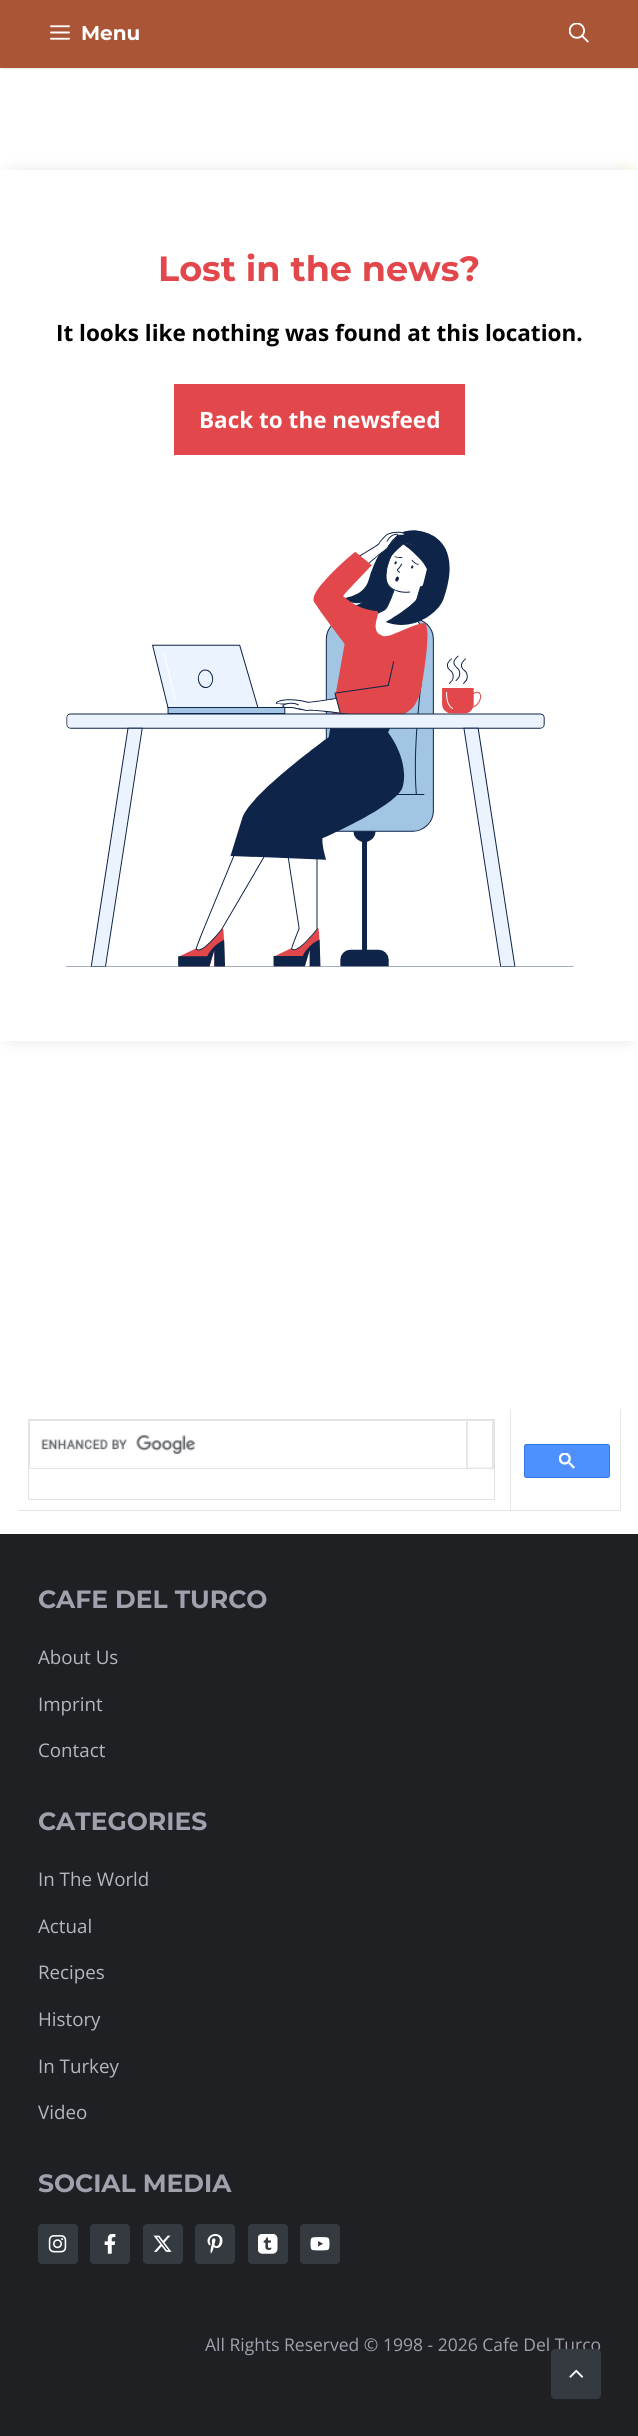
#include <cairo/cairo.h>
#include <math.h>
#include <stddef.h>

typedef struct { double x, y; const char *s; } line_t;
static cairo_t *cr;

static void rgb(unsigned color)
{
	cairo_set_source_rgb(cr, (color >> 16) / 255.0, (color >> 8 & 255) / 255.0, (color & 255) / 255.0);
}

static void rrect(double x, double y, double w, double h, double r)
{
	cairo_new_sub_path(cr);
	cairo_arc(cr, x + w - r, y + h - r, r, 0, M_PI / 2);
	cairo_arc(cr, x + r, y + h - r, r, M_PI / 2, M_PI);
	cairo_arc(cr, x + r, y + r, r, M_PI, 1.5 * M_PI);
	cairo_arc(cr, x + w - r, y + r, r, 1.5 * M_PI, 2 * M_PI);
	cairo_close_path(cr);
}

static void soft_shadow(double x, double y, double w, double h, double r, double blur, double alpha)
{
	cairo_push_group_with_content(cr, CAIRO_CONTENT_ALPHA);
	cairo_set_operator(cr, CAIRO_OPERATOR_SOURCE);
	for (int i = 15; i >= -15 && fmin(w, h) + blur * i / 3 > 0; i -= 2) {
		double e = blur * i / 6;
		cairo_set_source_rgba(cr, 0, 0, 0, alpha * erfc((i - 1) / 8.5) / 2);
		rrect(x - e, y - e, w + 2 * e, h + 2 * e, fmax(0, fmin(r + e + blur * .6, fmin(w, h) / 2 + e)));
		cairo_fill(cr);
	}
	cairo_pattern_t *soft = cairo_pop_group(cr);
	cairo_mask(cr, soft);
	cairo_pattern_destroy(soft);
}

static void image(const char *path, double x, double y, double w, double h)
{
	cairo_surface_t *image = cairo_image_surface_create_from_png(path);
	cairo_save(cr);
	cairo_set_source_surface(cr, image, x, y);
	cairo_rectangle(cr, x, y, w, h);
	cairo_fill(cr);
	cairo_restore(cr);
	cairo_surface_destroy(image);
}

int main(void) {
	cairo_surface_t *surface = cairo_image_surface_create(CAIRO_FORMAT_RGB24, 638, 2436);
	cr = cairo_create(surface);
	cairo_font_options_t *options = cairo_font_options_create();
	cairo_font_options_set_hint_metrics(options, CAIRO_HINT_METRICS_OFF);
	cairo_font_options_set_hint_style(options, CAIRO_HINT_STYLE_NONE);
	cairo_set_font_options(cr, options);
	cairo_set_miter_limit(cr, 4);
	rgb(0xffffff);
	cairo_paint(cr);
	image("img/1.png", 421, 162, 217, 8);
	rgb(0x000000);
	soft_shadow(3, 5, 633, 63, 0, 1, 0.2);
	rgb(0xaa5536);
	cairo_rectangle(cr, 0, 0, 638, 68);
	cairo_fill(cr);
	image("img/2.png", 50, 25, 20, 15);
	image("img/3.png", 569, 23, 20, 20);
	rgb(0x000000);
	soft_shadow(13, 183, 613, 846, 0, 12.5, 0.3);
	rgb(0xffffff);
	cairo_rectangle(cr, 0, 170, 638, 871);
	cairo_fill(cr);
	rgb(0xe2474b);
	cairo_rectangle(cr, 174, 384, 291, 71);
	cairo_fill(cr);
	image("img/4.png", 66, 530, 508, 437);
	rgb(0xe6e6e6);
	cairo_new_path(cr);
	cairo_move_to(cr, 511, 1409);
	cairo_line_to(cr, 511, 1511);
	cairo_line_to(cr, 510, 1510);
	cairo_line_to(cr, 510, 1409);
	cairo_close_path(cr);
	cairo_fill(cr);
	cairo_set_source_rgba(cr, 0, 0, 0, 0.1);
	cairo_new_path(cr);
	cairo_move_to(cr, 511, 1511);
	cairo_line_to(cr, 18, 1511);
	cairo_line_to(cr, 18, 1510);
	cairo_line_to(cr, 510, 1510);
	cairo_close_path(cr);
	cairo_fill(cr);
	cairo_rectangle(cr, 28.5, 1419.5, 466, 80);
	rgb(0xdfe1e5);
	cairo_set_line_width(cr, 1);
	cairo_stroke(cr);
	rgb(0xe6e6e6);
	cairo_new_path(cr);
	cairo_move_to(cr, 29, 1420);
	cairo_line_to(cr, 494, 1420);
	cairo_line_to(cr, 494, 1421);
	cairo_line_to(cr, 30, 1421);
	cairo_close_path(cr);
	cairo_fill(cr);
	cairo_set_source_rgba(cr, 0, 0, 0, 0.1);
	cairo_new_path(cr);
	cairo_move_to(cr, 29, 1469);
	cairo_line_to(cr, 29, 1420);
	cairo_line_to(cr, 30, 1421);
	cairo_line_to(cr, 30, 1469);
	cairo_close_path(cr);
	cairo_fill(cr);
	rgb(0xe6e6e6);
	cairo_new_path(cr);
	cairo_move_to(cr, 468, 1421);
	cairo_line_to(cr, 468, 1469);
	cairo_line_to(cr, 466, 1468);
	cairo_line_to(cr, 466, 1421);
	cairo_close_path(cr);
	cairo_fill(cr);
	cairo_set_source_rgba(cr, 0, 0, 0, 0.1);
	cairo_new_path(cr);
	cairo_move_to(cr, 468, 1469);
	cairo_line_to(cr, 30, 1469);
	cairo_line_to(cr, 30, 1468);
	cairo_line_to(cr, 466, 1468);
	cairo_close_path(cr);
	cairo_fill(cr);
	image("img/5.png", 41, 1435, 154, 19);
	rgb(0xe6e6e6);
	cairo_new_path(cr);
	cairo_move_to(cr, 494, 1421);
	cairo_line_to(cr, 494, 1469);
	cairo_line_to(cr, 492, 1468);
	cairo_line_to(cr, 492, 1421);
	cairo_close_path(cr);
	cairo_fill(cr);
	cairo_set_source_rgba(cr, 0, 0, 0, 0.1);
	cairo_new_path(cr);
	cairo_move_to(cr, 494, 1469);
	cairo_line_to(cr, 467.5, 1469);
	cairo_line_to(cr, 467.5, 1467.5);
	cairo_line_to(cr, 492.5, 1467.5);
	cairo_close_path(cr);
	cairo_fill(cr);
	rgb(0xe6e6e6);
	cairo_new_path(cr);
	cairo_move_to(cr, 621, 1409);
	cairo_line_to(cr, 621, 1511);
	cairo_line_to(cr, 620, 1510);
	cairo_line_to(cr, 620, 1409);
	cairo_close_path(cr);
	cairo_fill(cr);
	cairo_set_source_rgba(cr, 0, 0, 0, 0.1);
	cairo_new_path(cr);
	cairo_move_to(cr, 621, 1511);
	cairo_line_to(cr, 511, 1511);
	cairo_line_to(cr, 511, 1510);
	cairo_line_to(cr, 620, 1510);
	cairo_close_path(cr);
	cairo_fill(cr);
	rgb(0x4d90fe);
	rrect(524.5, 1444.5, 85, 33, 2);
	cairo_fill_preserve(cr);
	rgb(0x3079ed);
	cairo_stroke(cr);
	image("img/6.png", 559, 1453, 16, 16);
	rgb(0x1f2024);
	cairo_rectangle(cr, 0, 1534, 638, 902);
	cairo_fill(cr);
	rgb(0x343a40);
	rrect(38, 2224, 40, 40, 4);
	cairo_fill(cr);
	image("img/7.png", 48, 2235, 19, 18);
	rrect(90, 2224, 40, 40, 4);
	cairo_fill(cr);
	image("img/8.png", 104, 2234, 12, 20);
	rrect(143, 2224, 40, 40, 4);
	cairo_fill(cr);
	image("img/9.png", 153, 2235, 19, 17);
	rrect(195, 2224, 40, 40, 4);
	cairo_fill(cr);
	image("img/10.png", 207, 2234, 16, 20);
	rrect(248, 2224, 40, 40, 4);
	cairo_fill(cr);
	image("img/11.png", 258, 2234, 20, 20);
	rrect(300, 2224, 40, 40, 4);
	cairo_fill(cr);
	image("img/12.png", 310, 2237, 20, 14);
	cairo_select_font_face(cr, "Montserrat", CAIRO_FONT_SLANT_NORMAL, CAIRO_FONT_WEIGHT_BOLD);
	cairo_set_font_size(cr, 20);
	rgb(0xffffff);
	cairo_move_to(cr, 81, 40);
	cairo_show_text(cr, "Menu");
	cairo_set_font_size(cr, 35);
	rgb(0xe2474b);
	cairo_move_to(cr, 158, 281);
	cairo_show_text(cr, "Lost in the news?");
	cairo_select_font_face(cr, "Open Sans", CAIRO_FONT_SLANT_NORMAL, CAIRO_FONT_WEIGHT_BOLD);
	cairo_set_font_size(cr, 22.5);
	rgb(0x000000);
	cairo_move_to(cr, 56, 341);
	cairo_show_text(cr, "It looks like nothing was found at this location.");
	rgb(0xffffff);
	cairo_move_to(cr, 199, 428);
	cairo_show_text(cr, "Back to the newsfeed");
	cairo_select_font_face(cr, "Montserrat", CAIRO_FONT_SLANT_NORMAL, CAIRO_FONT_WEIGHT_BOLD);
	cairo_set_font_size(cr, 25);
	rgb(0xa0a1ad);
	cairo_move_to(cr, 38, 1608);
	cairo_show_text(cr, "CAFE DEL TURCO");
	cairo_select_font_face(cr, "Open Sans", CAIRO_FONT_SLANT_NORMAL, CAIRO_FONT_WEIGHT_NORMAL);
	cairo_set_font_size(cr, 18.75);
	rgb(0xb5b7bf);
	{
		static const line_t items[] = {
			{38, 1664, "About Us"},
			{38, 1711, "Imprint"},
			{38, 1757, "Contact"},
		};
		for (size_t i = 0; i < sizeof items / sizeof *items; i++) {
			cairo_move_to(cr, items[i].x, items[i].y);
			cairo_show_text(cr, items[i].s);
		}
	}
	cairo_select_font_face(cr, "Montserrat", CAIRO_FONT_SLANT_NORMAL, CAIRO_FONT_WEIGHT_BOLD);
	cairo_set_font_size(cr, 25);
	rgb(0xa0a1ad);
	cairo_move_to(cr, 38, 1830);
	cairo_show_text(cr, "CATEGORIES");
	cairo_select_font_face(cr, "Open Sans", CAIRO_FONT_SLANT_NORMAL, CAIRO_FONT_WEIGHT_NORMAL);
	cairo_set_font_size(cr, 18.75);
	rgb(0xb5b7bf);
	{
		static const line_t items[] = {
			{38, 1886, "In The World"},
			{38, 1933, "Actual"},
			{38, 1979, "Recipes"},
			{38, 2026, "History"},
			{38, 2073, "In Turkey"},
			{38, 2119, "Video"},
		};
		for (size_t i = 0; i < sizeof items / sizeof *items; i++) {
			cairo_move_to(cr, items[i].x, items[i].y);
			cairo_show_text(cr, items[i].s);
		}
	}
	cairo_select_font_face(cr, "Montserrat", CAIRO_FONT_SLANT_NORMAL, CAIRO_FONT_WEIGHT_BOLD);
	cairo_set_font_size(cr, 25);
	rgb(0xa0a1ad);
	cairo_move_to(cr, 38, 2192);
	cairo_show_text(cr, "SOCIAL MEDIA");
	cairo_select_font_face(cr, "Open Sans", CAIRO_FONT_SLANT_NORMAL, CAIRO_FONT_WEIGHT_NORMAL);
	cairo_set_font_size(cr, 17.5);
	cairo_move_to(cr, 205, 2351);
	cairo_show_text(cr, "All Rights Reserved © 1998 - 2026 Cafe Del Turco");
	rgb(0x343a40);
	rrect(551, 2349, 50, 50, 4);
	cairo_fill(cr);
	image("img/13.png", 569, 2369, 15, 9);
	cairo_surface_write_to_png(surface, "page.png");
	cairo_font_options_destroy(options);
	cairo_destroy(cr);
	cairo_surface_destroy(surface);
	return 0;
}
